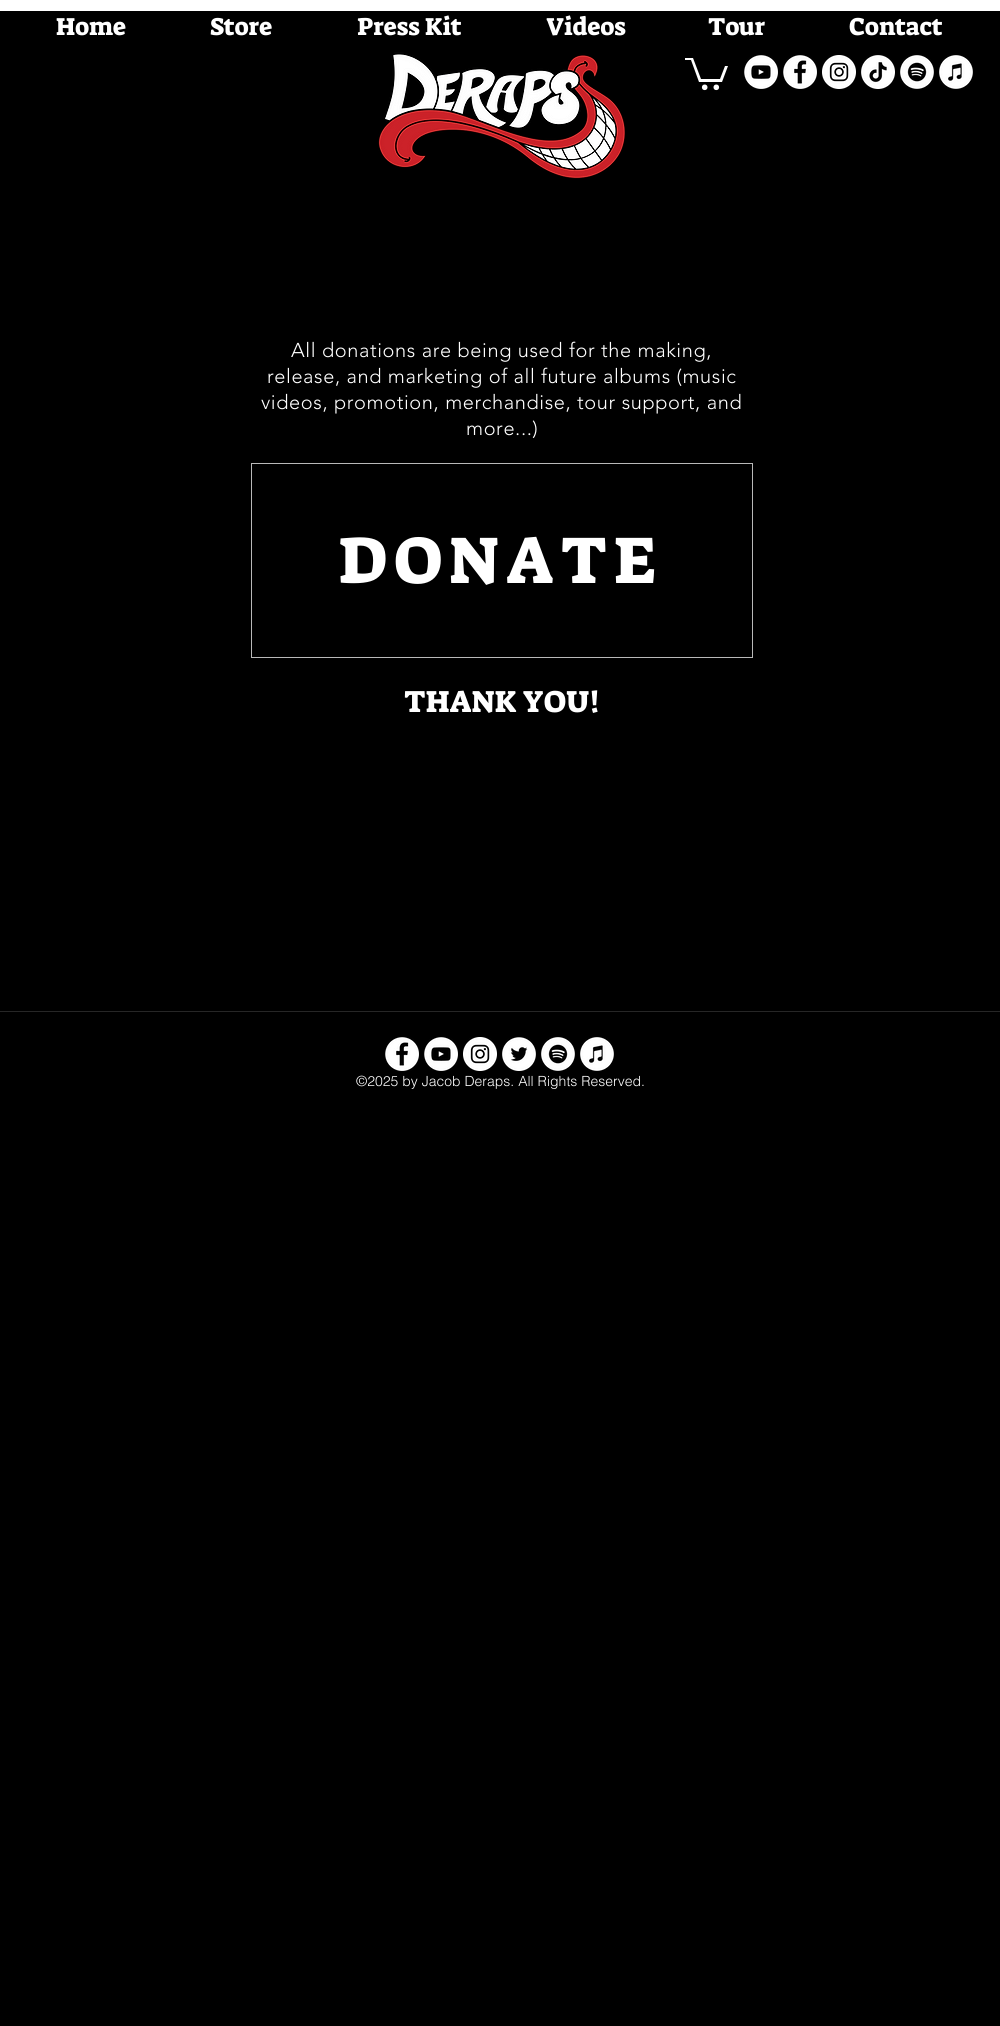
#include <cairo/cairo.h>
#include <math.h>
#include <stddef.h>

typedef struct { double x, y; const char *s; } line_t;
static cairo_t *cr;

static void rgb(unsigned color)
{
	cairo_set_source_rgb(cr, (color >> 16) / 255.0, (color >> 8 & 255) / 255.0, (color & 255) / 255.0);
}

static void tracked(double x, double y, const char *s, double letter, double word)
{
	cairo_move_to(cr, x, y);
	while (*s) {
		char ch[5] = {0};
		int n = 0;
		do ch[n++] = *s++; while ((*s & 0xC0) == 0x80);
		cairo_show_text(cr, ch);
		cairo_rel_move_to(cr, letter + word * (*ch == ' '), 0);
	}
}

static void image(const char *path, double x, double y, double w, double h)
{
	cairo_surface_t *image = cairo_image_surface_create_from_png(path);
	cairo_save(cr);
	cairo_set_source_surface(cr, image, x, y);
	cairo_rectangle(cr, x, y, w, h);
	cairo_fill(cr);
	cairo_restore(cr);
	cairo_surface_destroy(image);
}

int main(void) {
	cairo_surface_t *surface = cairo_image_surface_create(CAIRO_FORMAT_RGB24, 1000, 2026);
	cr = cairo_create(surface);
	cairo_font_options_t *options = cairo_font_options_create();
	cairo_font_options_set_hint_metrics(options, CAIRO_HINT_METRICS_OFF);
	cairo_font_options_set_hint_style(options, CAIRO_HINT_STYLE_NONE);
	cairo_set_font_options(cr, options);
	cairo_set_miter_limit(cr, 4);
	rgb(0xffffff);
	cairo_paint(cr);
	rgb(0x000000);
	cairo_rectangle(cr, 0, 11, 1000, 2015);
	cairo_fill(cr);
	image("img/1.png", 378, 52, 247, 127);
	rgb(0xffffff);
	cairo_new_path(cr);
	cairo_move_to(cr, 728, 66);
	cairo_line_to(cr, 722, 82);
	cairo_line_to(cr, 699, 82);
	cairo_line_to(cr, 691, 60);
	cairo_line_to(cr, 685, 60);
	cairo_line_to(cr, 685, 58);
	cairo_line_to(cr, 693, 58);
	cairo_line_to(cr, 701, 79);
	cairo_line_to(cr, 720, 79);
	cairo_line_to(cr, 725, 66);
	cairo_fill(cr);
	cairo_arc(cr, 716.3, 87.3, 2.8, 0, 2 * M_PI);
	cairo_fill(cr);
	cairo_arc(cr, 704.7, 87.3, 2.8, 0, 2 * M_PI);
	cairo_fill(cr);
	image("img/2.png", 744, 55, 34, 34);
	image("img/3.png", 783, 55, 34, 34);
	image("img/4.png", 822, 55, 34, 34);
	image("img/5.png", 861, 55, 34, 34);
	image("img/6.png", 900, 55, 34, 34);
	image("img/7.png", 939, 55, 34, 34);
	cairo_rectangle(cr, 251.5, 463.5, 501, 194);
	rgb(0xb9b9b9);
	cairo_set_line_width(cr, 1);
	cairo_stroke(cr);
	rgb(0x262626);
	cairo_rectangle(cr, 0, 1011, 1000, 1);
	cairo_fill(cr);
	image("img/3.png", 385, 1037, 34, 34);
	image("img/2.png", 424, 1037, 34, 34);
	image("img/4.png", 463, 1037, 34, 34);
	image("img/8.png", 502, 1037, 34, 34);
	image("img/6.png", 541, 1037, 34, 34);
	image("img/7.png", 580, 1037, 34, 34);
	cairo_select_font_face(cr, "Suez One", CAIRO_FONT_SLANT_NORMAL, CAIRO_FONT_WEIGHT_NORMAL);
	cairo_set_font_size(cr, 25);
	rgb(0xffffff);
	{
		static const line_t items[] = {
			{56, 35, "Home"},
			{210, 35, "Store"},
			{357, 35, "Press Kit"},
			{546, 35, "Videos"},
			{708, 35, "Tour"},
			{849, 35, "Contact"},
		};
		for (size_t i = 0; i < sizeof items / sizeof *items; i++) {
			cairo_move_to(cr, items[i].x, items[i].y);
			cairo_show_text(cr, items[i].s);
		}
	}
	cairo_select_font_face(cr, "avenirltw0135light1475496 Light", CAIRO_FONT_SLANT_NORMAL, CAIRO_FONT_WEIGHT_NORMAL);
	cairo_set_font_size(cr, 20);
	{
		static const line_t items[] = {
			{291, 357, "All donations are being used for the making,"},
			{267, 383, "release, and marketing of all future albums (music"},
			{261, 409, "videos, promotion, merchandise, tour support, and"},
			{466, 435, "more...)"},
		};
		for (size_t i = 0; i < sizeof items / sizeof *items; i++) {
			tracked(items[i].x, items[i].y, items[i].s, 0.6, 0);
		}
	}
	cairo_select_font_face(cr, "Suez One", CAIRO_FONT_SLANT_NORMAL, CAIRO_FONT_WEIGHT_NORMAL);
	cairo_set_font_size(cr, 67);
	tracked(338, 583, "DONATE", 6.75, 0);
	cairo_set_font_size(cr, 31);
	cairo_move_to(cr, 404, 712);
	cairo_show_text(cr, "THANK YOU!");
	cairo_select_font_face(cr, "helvetica Light", CAIRO_FONT_SLANT_NORMAL, CAIRO_FONT_WEIGHT_NORMAL);
	cairo_set_font_size(cr, 14);
	cairo_move_to(cr, 356, 1086);
	cairo_show_text(cr, "©2025 by Jacob Deraps. All Rights Reserved.");
	cairo_surface_write_to_png(surface, "page.png");
	cairo_font_options_destroy(options);
	cairo_destroy(cr);
	cairo_surface_destroy(surface);
	return 0;
}
